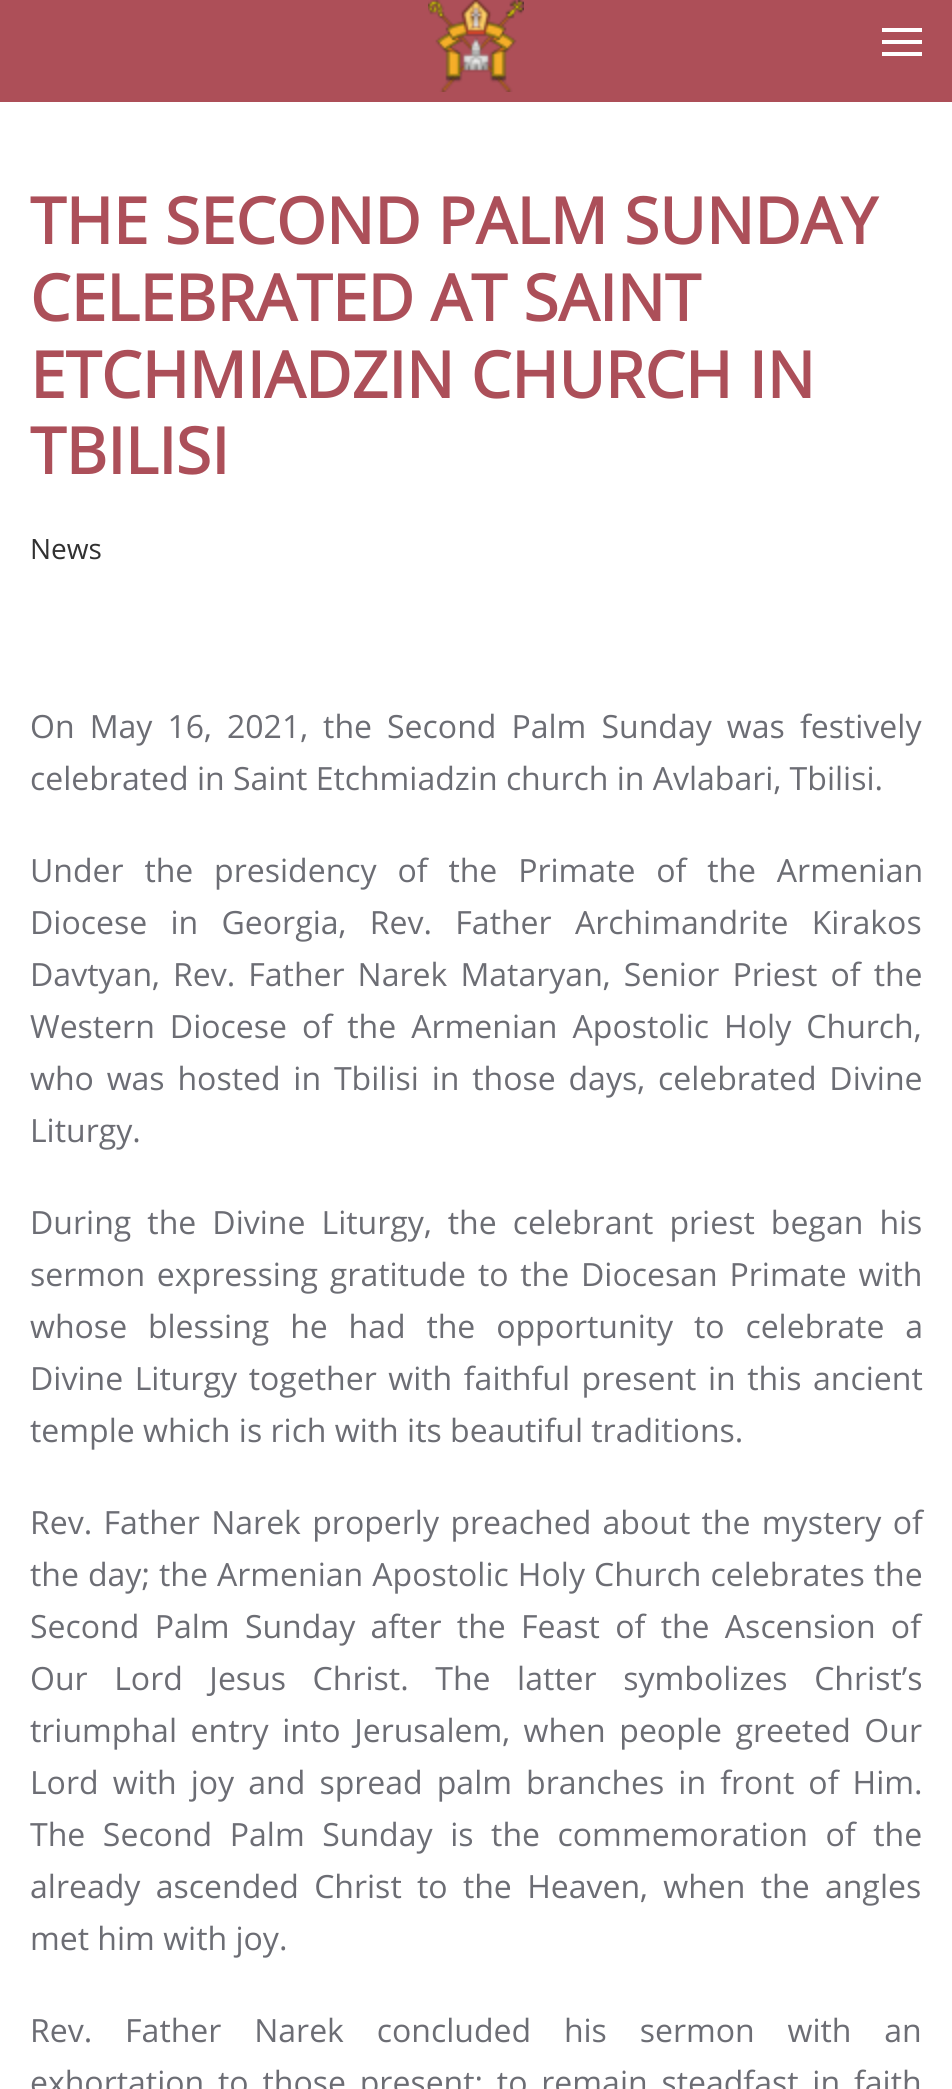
#include <cairo/cairo.h>
#include <math.h>
#include <stddef.h>

typedef struct { double x, y; const char *s; } line_t;
typedef struct { double x, y, w, h; unsigned color; } box_t;
static cairo_t *cr;

static void rgb(unsigned color)
{
	cairo_set_source_rgb(cr, (color >> 16) / 255.0, (color >> 8 & 255) / 255.0, (color & 255) / 255.0);
}

static void tracked(double x, double y, const char *s, double letter, double word)
{
	cairo_move_to(cr, x, y);
	while (*s) {
		char ch[5] = {0};
		int n = 0;
		do ch[n++] = *s++; while ((*s & 0xC0) == 0x80);
		cairo_show_text(cr, ch);
		cairo_rel_move_to(cr, letter + word * (*ch == ' '), 0);
	}
}

static void image(const char *path, double x, double y, double w, double h)
{
	cairo_surface_t *image = cairo_image_surface_create_from_png(path);
	cairo_save(cr);
	cairo_set_source_surface(cr, image, x, y);
	cairo_rectangle(cr, x, y, w, h);
	cairo_fill(cr);
	cairo_restore(cr);
	cairo_surface_destroy(image);
}

int main(void) {
	cairo_surface_t *surface = cairo_image_surface_create(CAIRO_FORMAT_RGB24, 952, 2089);
	cr = cairo_create(surface);
	cairo_font_options_t *options = cairo_font_options_create();
	cairo_font_options_set_hint_metrics(options, CAIRO_HINT_METRICS_OFF);
	cairo_font_options_set_hint_style(options, CAIRO_HINT_STYLE_NONE);
	cairo_set_font_options(cr, options);
	cairo_set_miter_limit(cr, 4);
	rgb(0xffffff);
	cairo_paint(cr);
	rgb(0xad4f58);
	cairo_rectangle(cr, 0, 0, 952, 102);
	cairo_fill(cr);
	image("img/1.png", 428, 0, 96, 92);
	{
		static const box_t items[] = {
			{882, 28, 40, 4, 0xffffff},
			{882, 40, 40, 4, 0xffffff},
			{882, 52, 40, 4, 0xffffff},
		};
		for (size_t i = 0; i < sizeof items / sizeof *items; i++) {
			rgb(items[i].color);
			cairo_rectangle(cr, items[i].x, items[i].y, items[i].w, items[i].h);
			cairo_fill(cr);
		}
	}
	cairo_select_font_face(cr, "Open Sans", CAIRO_FONT_SLANT_NORMAL, CAIRO_FONT_WEIGHT_BOLD);
	cairo_set_font_size(cr, 64);
	rgb(0xac4f59);
	{
		static const line_t items[] = {
			{30, 244, "THE SECOND PALM SUNDAY"},
			{30, 321, "CELEBRATED AT SAINT"},
			{30, 398, "ETCHMIADZIN CHURCH IN"},
			{30, 474, "TBILISI"},
		};
		for (size_t i = 0; i < sizeof items / sizeof *items; i++) {
			cairo_move_to(cr, items[i].x, items[i].y);
			cairo_show_text(cr, items[i].s);
		}
	}
	cairo_select_font_face(cr, "Open Sans", CAIRO_FONT_SLANT_NORMAL, CAIRO_FONT_WEIGHT_NORMAL);
	cairo_set_font_size(cr, 28);
	rgb(0x313131);
	cairo_move_to(cr, 30, 559);
	cairo_show_text(cr, "News");
	cairo_set_font_size(cr, 32);
	rgb(0x6c6d74);
	tracked(30, 738, "On May 16, 2021, the Second Palm Sunday was festively", 0, 6.75);
	cairo_move_to(cr, 30, 790);
	cairo_show_text(cr, "celebrated in Saint Etchmiadzin church in Avlabari, Tbilisi.");
	tracked(30, 882, "Under the presidency of the Primate of the Armenian", 0, 12.5);
	tracked(30, 934, "Diocese in Georgia, Rev. Father Archimandrite Kirakos", 0, 15);
	tracked(30, 986, "Davtyan, Rev. Father Narek Mataryan, Senior Priest of the", 0, 4.75);
	tracked(30, 1038, "Western Diocese of the Armenian Apostolic Holy Church,", 0, 6.75);
	tracked(30, 1090, "who was hosted in Tbilisi in those days, celebrated Divine", 0, 4.5);
	cairo_move_to(cr, 30, 1142);
	cairo_show_text(cr, "Liturgy.");
	tracked(30, 1234, "During the Divine Liturgy, the celebrant priest began his", 0, 7.75);
	tracked(30, 1286, "sermon expressing gratitude to the Diocesan Primate with", 0, 3.5);
	tracked(30, 1338, "whose blessing he had the opportunity to celebrate a", 0, 12.5);
	tracked(30, 1390, "Divine Liturgy together with faithful present in this ancient", 0, 3.25);
	cairo_move_to(cr, 30, 1442);
	cairo_show_text(cr, "temple which is rich with its beautiful traditions.");
	tracked(30, 1534, "Rev. Father Narek properly preached about the mystery of", 0, 3);
	tracked(30, 1586, "the day; the Armenian Apostolic Holy Church celebrates the", 0, 0.75);
	tracked(30, 1638, "Second Palm Sunday after the Feast of the Ascension of", 0, 7);
	tracked(30, 1690, "Our Lord Jesus Christ. The latter symbolizes Christ’s", 0, 18.25);
	tracked(30, 1742, "triumphal entry into Jerusalem, when people greeted Our", 0, 5.25);
	tracked(30, 1794, "Lord with joy and spread palm branches in front of Him.", 0, 5.75);
	tracked(30, 1846, "The Second Palm Sunday is the commemoration of the", 0, 9.25);
	tracked(30, 1898, "already ascended Christ to the Heaven, when the angles", 0, 7);
	cairo_move_to(cr, 30, 1950);
	cairo_show_text(cr, "met him with joy.");
	tracked(30, 2042, "Rev. Father Narek concluded his sermon with an", 0, 24.5);
	tracked(30, 2094, "exhortation to those present: to remain steadfast in faith", 0, 5.5);
	cairo_surface_write_to_png(surface, "page.png");
	cairo_font_options_destroy(options);
	cairo_destroy(cr);
	cairo_surface_destroy(surface);
	return 0;
}
